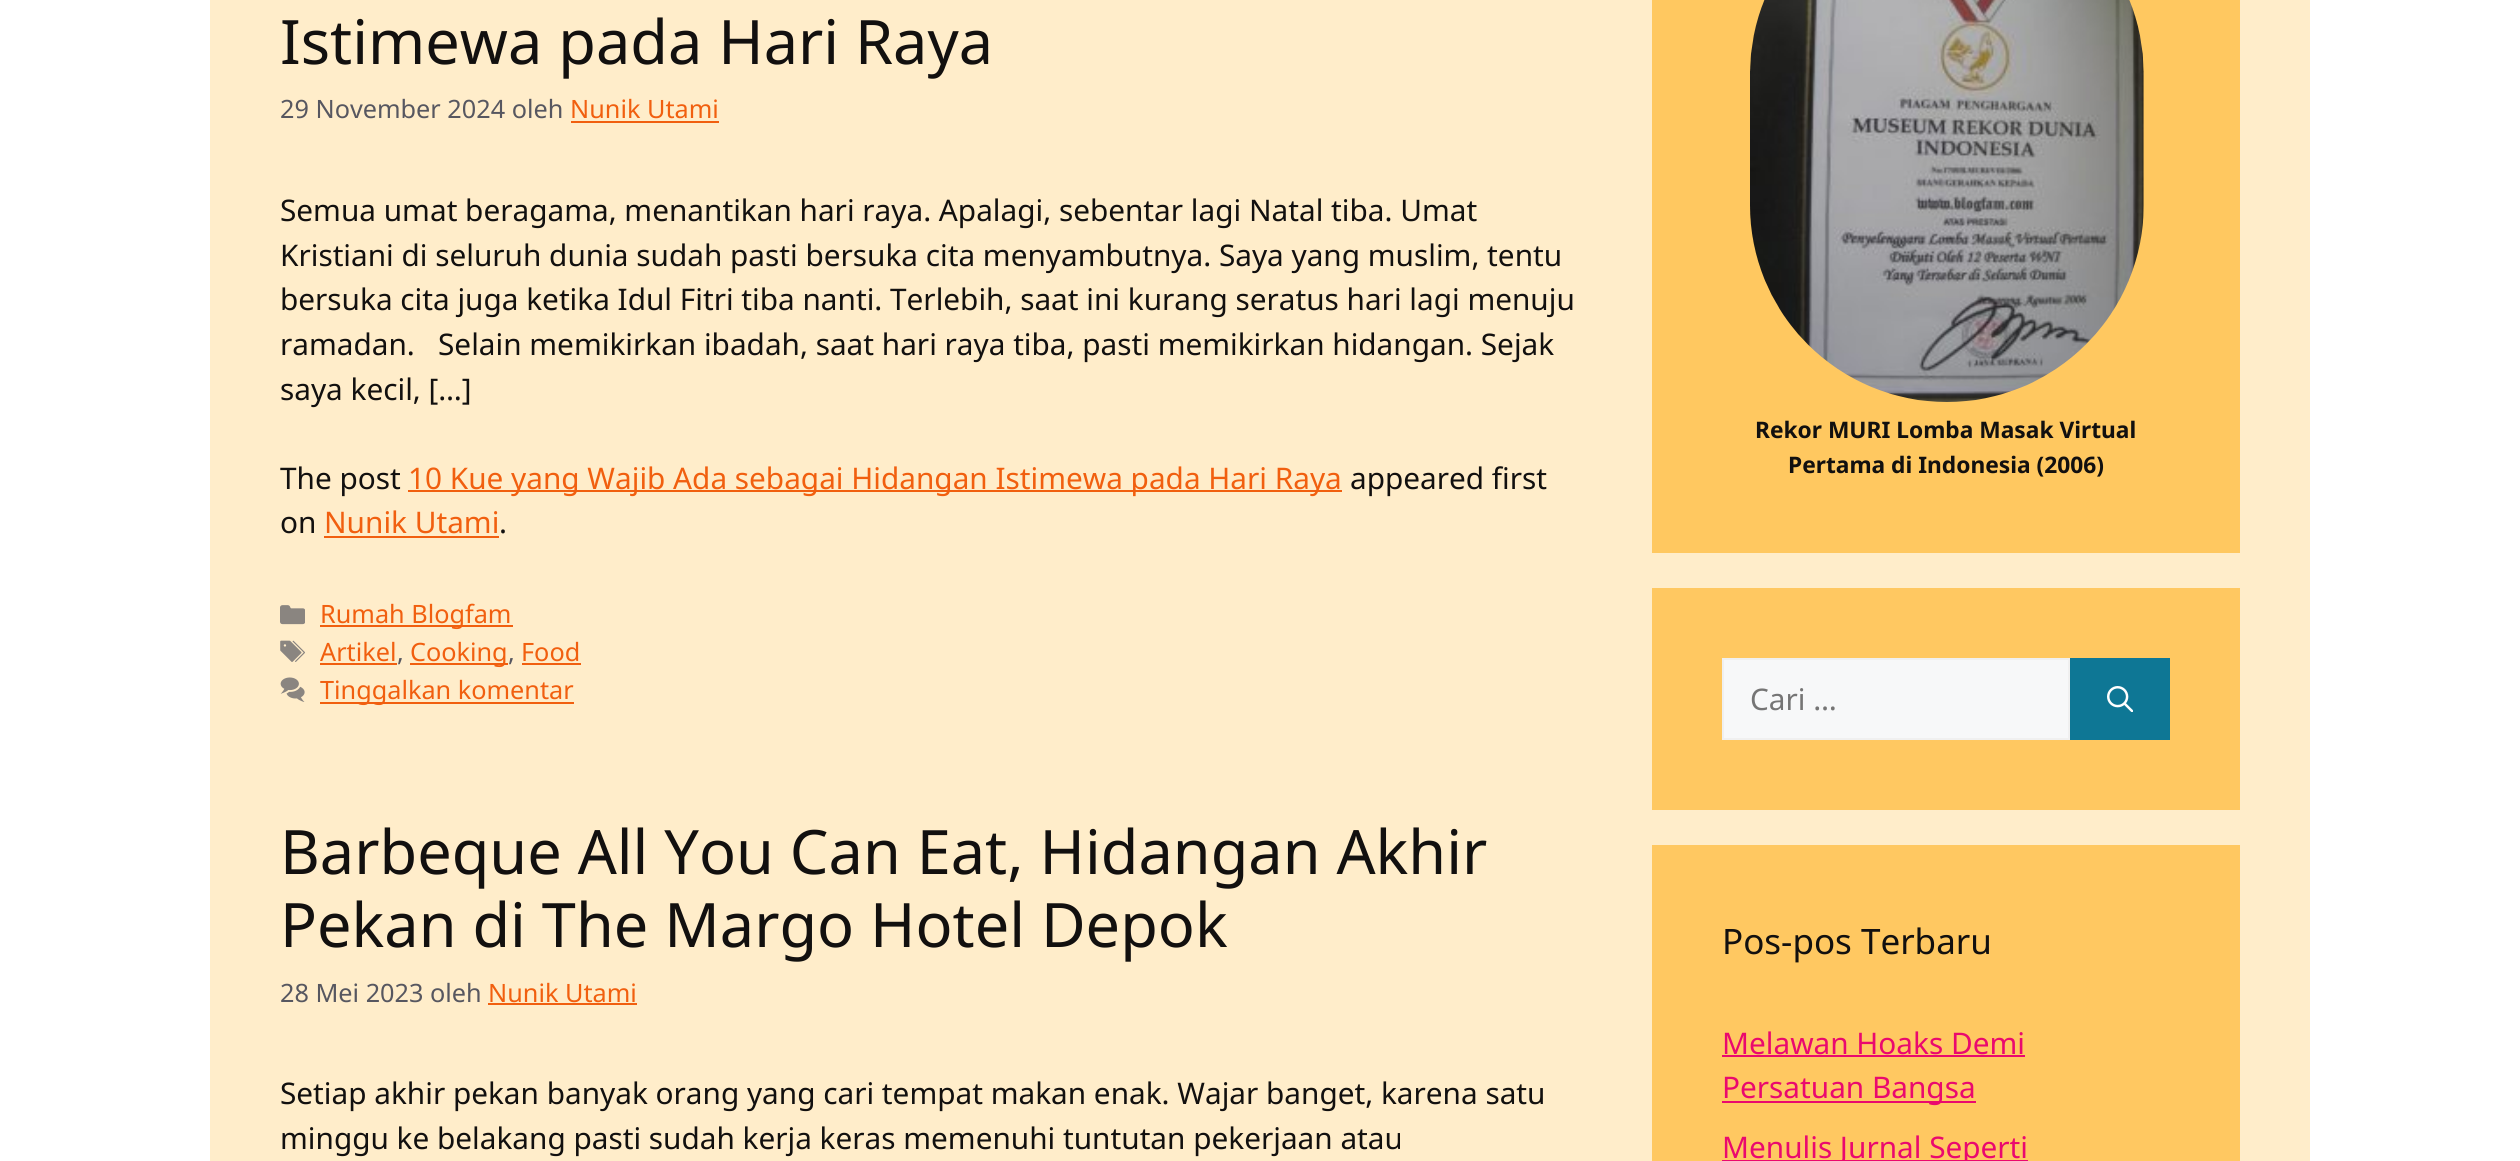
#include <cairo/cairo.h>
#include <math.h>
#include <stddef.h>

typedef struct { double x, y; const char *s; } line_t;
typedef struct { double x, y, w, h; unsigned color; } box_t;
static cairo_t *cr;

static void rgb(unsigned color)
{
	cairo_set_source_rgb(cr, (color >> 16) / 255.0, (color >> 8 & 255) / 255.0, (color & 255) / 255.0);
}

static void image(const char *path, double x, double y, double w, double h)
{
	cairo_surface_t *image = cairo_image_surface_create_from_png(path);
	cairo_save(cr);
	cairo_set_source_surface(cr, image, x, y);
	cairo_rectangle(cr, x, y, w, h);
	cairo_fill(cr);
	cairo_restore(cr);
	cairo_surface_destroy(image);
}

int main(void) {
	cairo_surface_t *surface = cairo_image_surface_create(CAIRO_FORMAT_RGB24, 2520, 1161);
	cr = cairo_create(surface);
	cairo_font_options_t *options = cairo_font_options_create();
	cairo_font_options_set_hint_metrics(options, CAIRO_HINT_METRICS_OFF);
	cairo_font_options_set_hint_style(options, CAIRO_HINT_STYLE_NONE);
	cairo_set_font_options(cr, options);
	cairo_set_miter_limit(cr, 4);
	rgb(0xffffff);
	cairo_paint(cr);
	{
		static const box_t items[] = {
			{210, 0, 2100, 1161, 0xffedca},
			{571, 121, 148, 2, 0xf15f0f},
			{408, 490, 934, 2, 0xf15f0f},
			{324, 536, 175, 2, 0xf15f0f},
		};
		for (size_t i = 0; i < sizeof items / sizeof *items; i++) {
			rgb(items[i].color);
			cairo_rectangle(cr, items[i].x, items[i].y, items[i].w, items[i].h);
			cairo_fill(cr);
		}
	}
	image("img/1.png", 280, 605, 25, 20);
	cairo_rectangle(cr, 320, 625, 193, 2);
	cairo_fill(cr);
	image("img/2.png", 280, 640, 25, 22);
	{
		static const box_t items[] = {
			{320, 663, 77, 2, 0xf15f0f},
			{410, 663, 98, 2, 0xf15f0f},
			{522, 663, 59, 2, 0xf15f0f},
		};
		for (size_t i = 0; i < sizeof items / sizeof *items; i++) {
			rgb(items[i].color);
			cairo_rectangle(cr, items[i].x, items[i].y, items[i].w, items[i].h);
			cairo_fill(cr);
		}
	}
	image("img/3.png", 280, 677, 25, 25);
	{
		static const box_t items[] = {
			{320, 702, 254, 2, 0xf15f0f},
			{488, 1003, 149, 2, 0xf15f0f},
			{1652, 0, 588, 553, 0xffc860},
		};
		for (size_t i = 0; i < sizeof items / sizeof *items; i++) {
			rgb(items[i].color);
			cairo_rectangle(cr, items[i].x, items[i].y, items[i].w, items[i].h);
			cairo_fill(cr);
		}
	}
	image("img/4.png", 1750, 0, 394, 402);
	rgb(0xffc861);
	cairo_rectangle(cr, 1652, 588, 588, 222);
	cairo_fill(cr);
	rgb(0xf7f8f9);
	cairo_rectangle(cr, 1723, 659, 346, 80);
	cairo_fill_preserve(cr);
	rgb(0xf0f0f0);
	cairo_stroke(cr);
	rgb(0x0e7795);
	cairo_rectangle(cr, 2070, 658, 100, 82);
	cairo_fill(cr);
	image("img/5.png", 2107, 686, 26, 26);
	{
		static const box_t items[] = {
			{1652, 845, 588, 316, 0xffc861},
			{1722, 1055, 303, 2, 0xea096e},
			{1722, 1101, 254, 2, 0xea096e},
			{1722, 1160, 306, 1, 0xea096e},
		};
		for (size_t i = 0; i < sizeof items / sizeof *items; i++) {
			rgb(items[i].color);
			cairo_rectangle(cr, items[i].x, items[i].y, items[i].w, items[i].h);
			cairo_fill(cr);
		}
	}
	cairo_select_font_face(cr, "Noto Sans", CAIRO_FONT_SLANT_NORMAL, CAIRO_FONT_WEIGHT_NORMAL);
	cairo_set_font_size(cr, 61.25);
	rgb(0x12100f);
	cairo_move_to(cr, 280, 64);
	cairo_show_text(cr, "Istimewa pada Hari Raya");
	cairo_set_font_size(cr, 25.25);
	rgb(0x575760);
	cairo_move_to(cr, 280, 118);
	cairo_show_text(cr, "29 November 2024 oleh");
	rgb(0xf15f0f);
	cairo_move_to(cr, 570, 118);
	cairo_show_text(cr, "Nunik Utami");
	cairo_set_font_size(cr, 29.75);
	rgb(0x12100f);
	{
		static const line_t items[] = {
			{280, 221, "Semua umat beragama, menantikan hari raya. Apalagi, sebentar lagi Natal tiba. Umat"},
			{280, 266, "Kristiani di seluruh dunia sudah pasti bersuka cita menyambutnya. Saya yang muslim, tentu"},
			{280, 310, "bersuka cita juga ketika Idul Fitri tiba nanti. Terlebih, saat ini kurang seratus hari lagi menuju"},
			{280, 355, "ramadan.   Selain memikirkan ibadah, saat hari raya tiba, pasti memikirkan hidangan. Sejak"},
			{280, 400, "saya kecil, […]"},
			{280, 489, "The post"},
		};
		for (size_t i = 0; i < sizeof items / sizeof *items; i++) {
			cairo_move_to(cr, items[i].x, items[i].y);
			cairo_show_text(cr, items[i].s);
		}
	}
	rgb(0xf15f0f);
	cairo_move_to(cr, 408, 489);
	cairo_show_text(cr, "10 Kue yang Wajib Ada sebagai Hidangan Istimewa pada Hari Raya");
	rgb(0x12100f);
	cairo_move_to(cr, 1350, 489);
	cairo_show_text(cr, "appeared first");
	cairo_move_to(cr, 280, 533);
	cairo_show_text(cr, "on");
	rgb(0xf15f0f);
	cairo_move_to(cr, 324, 533);
	cairo_show_text(cr, "Nunik Utami");
	rgb(0x12100f);
	cairo_move_to(cr, 499, 533);
	cairo_show_text(cr, ".");
	cairo_set_font_size(cr, 25.25);
	rgb(0xf15f0f);
	cairo_move_to(cr, 320, 623);
	cairo_show_text(cr, "Rumah Blogfam");
	cairo_move_to(cr, 320, 661);
	cairo_show_text(cr, "Artikel");
	rgb(0x575760);
	cairo_move_to(cr, 397, 661);
	cairo_show_text(cr, ",");
	rgb(0xf15f0f);
	cairo_move_to(cr, 410, 661);
	cairo_show_text(cr, "Cooking");
	rgb(0x575760);
	cairo_move_to(cr, 508, 661);
	cairo_show_text(cr, ",");
	rgb(0xf15f0f);
	cairo_move_to(cr, 521, 661);
	cairo_show_text(cr, "Food");
	cairo_move_to(cr, 320, 699);
	cairo_show_text(cr, "Tinggalkan komentar");
	cairo_set_font_size(cr, 61.25);
	rgb(0x12100f);
	cairo_move_to(cr, 280, 874);
	cairo_show_text(cr, "Barbeque All You Can Eat, Hidangan Akhir");
	cairo_move_to(cr, 280, 947);
	cairo_show_text(cr, "Pekan di The Margo Hotel Depok");
	cairo_set_font_size(cr, 25.25);
	rgb(0x575760);
	cairo_move_to(cr, 280, 1002);
	cairo_show_text(cr, "28 Mei 2023 oleh");
	rgb(0xf15f0f);
	cairo_move_to(cr, 488, 1002);
	cairo_show_text(cr, "Nunik Utami");
	cairo_set_font_size(cr, 29.75);
	rgb(0x12100f);
	cairo_move_to(cr, 280, 1104);
	cairo_show_text(cr, "Setiap akhir pekan banyak orang yang cari tempat makan enak. Wajar banget, karena satu");
	cairo_move_to(cr, 280, 1149);
	cairo_show_text(cr, "minggu ke belakang pasti sudah kerja keras memenuhi tuntutan pekerjaan atau");
	cairo_select_font_face(cr, "Noto Sans", CAIRO_FONT_SLANT_NORMAL, CAIRO_FONT_WEIGHT_BOLD);
	cairo_set_font_size(cr, 22.75);
	cairo_move_to(cr, 1755, 438);
	cairo_show_text(cr, "Rekor MURI Lomba Masak Virtual");
	cairo_move_to(cr, 1788, 473);
	cairo_show_text(cr, "Pertama di Indonesia (2006)");
	cairo_select_font_face(cr, "Noto Sans", CAIRO_FONT_SLANT_NORMAL, CAIRO_FONT_WEIGHT_NORMAL);
	cairo_set_font_size(cr, 29.75);
	rgb(0x757575);
	cairo_move_to(cr, 1750, 710);
	cairo_show_text(cr, "Cari …");
	cairo_set_font_size(cr, 35);
	rgb(0x12100f);
	cairo_move_to(cr, 1722, 954);
	cairo_show_text(cr, "Pos-pos Terbaru");
	cairo_set_font_size(cr, 29.75);
	rgb(0xea096e);
	{
		static const line_t items[] = {
			{1722, 1054, "Melawan Hoaks Demi"},
			{1722, 1098, "Persatuan Bangsa"},
			{1722, 1158, "Menulis Jurnal Seperti"},
		};
		for (size_t i = 0; i < sizeof items / sizeof *items; i++) {
			cairo_move_to(cr, items[i].x, items[i].y);
			cairo_show_text(cr, items[i].s);
		}
	}
	cairo_surface_write_to_png(surface, "page.png");
	cairo_font_options_destroy(options);
	cairo_destroy(cr);
	cairo_surface_destroy(surface);
	return 0;
}
